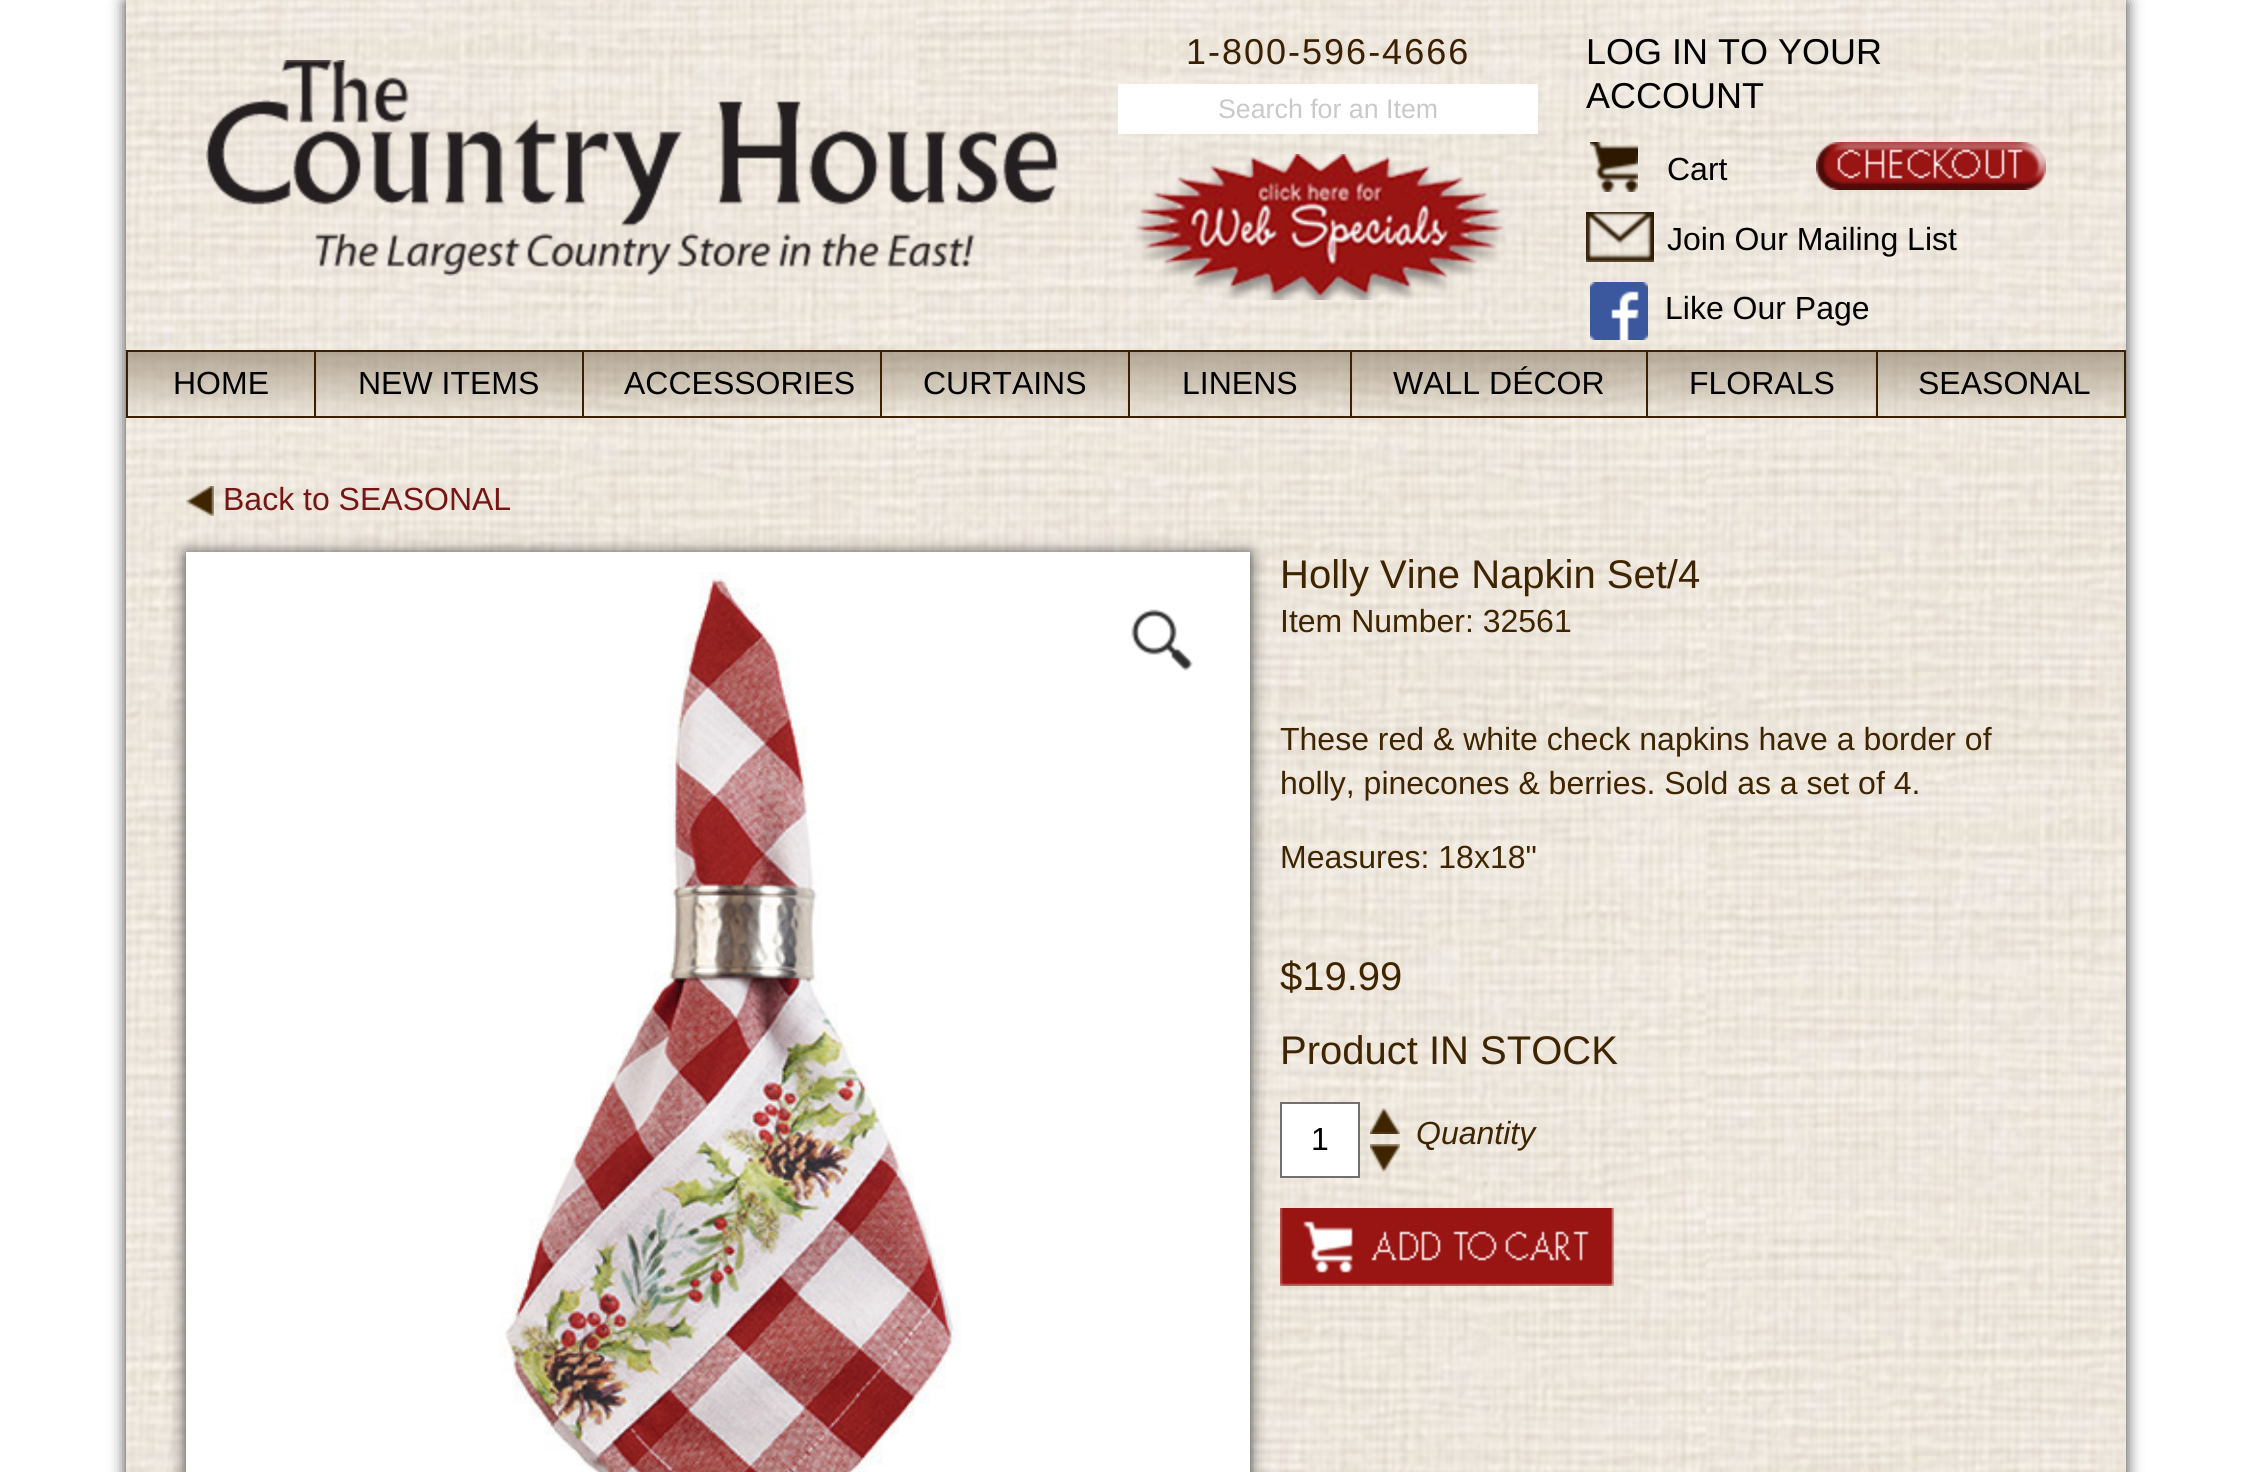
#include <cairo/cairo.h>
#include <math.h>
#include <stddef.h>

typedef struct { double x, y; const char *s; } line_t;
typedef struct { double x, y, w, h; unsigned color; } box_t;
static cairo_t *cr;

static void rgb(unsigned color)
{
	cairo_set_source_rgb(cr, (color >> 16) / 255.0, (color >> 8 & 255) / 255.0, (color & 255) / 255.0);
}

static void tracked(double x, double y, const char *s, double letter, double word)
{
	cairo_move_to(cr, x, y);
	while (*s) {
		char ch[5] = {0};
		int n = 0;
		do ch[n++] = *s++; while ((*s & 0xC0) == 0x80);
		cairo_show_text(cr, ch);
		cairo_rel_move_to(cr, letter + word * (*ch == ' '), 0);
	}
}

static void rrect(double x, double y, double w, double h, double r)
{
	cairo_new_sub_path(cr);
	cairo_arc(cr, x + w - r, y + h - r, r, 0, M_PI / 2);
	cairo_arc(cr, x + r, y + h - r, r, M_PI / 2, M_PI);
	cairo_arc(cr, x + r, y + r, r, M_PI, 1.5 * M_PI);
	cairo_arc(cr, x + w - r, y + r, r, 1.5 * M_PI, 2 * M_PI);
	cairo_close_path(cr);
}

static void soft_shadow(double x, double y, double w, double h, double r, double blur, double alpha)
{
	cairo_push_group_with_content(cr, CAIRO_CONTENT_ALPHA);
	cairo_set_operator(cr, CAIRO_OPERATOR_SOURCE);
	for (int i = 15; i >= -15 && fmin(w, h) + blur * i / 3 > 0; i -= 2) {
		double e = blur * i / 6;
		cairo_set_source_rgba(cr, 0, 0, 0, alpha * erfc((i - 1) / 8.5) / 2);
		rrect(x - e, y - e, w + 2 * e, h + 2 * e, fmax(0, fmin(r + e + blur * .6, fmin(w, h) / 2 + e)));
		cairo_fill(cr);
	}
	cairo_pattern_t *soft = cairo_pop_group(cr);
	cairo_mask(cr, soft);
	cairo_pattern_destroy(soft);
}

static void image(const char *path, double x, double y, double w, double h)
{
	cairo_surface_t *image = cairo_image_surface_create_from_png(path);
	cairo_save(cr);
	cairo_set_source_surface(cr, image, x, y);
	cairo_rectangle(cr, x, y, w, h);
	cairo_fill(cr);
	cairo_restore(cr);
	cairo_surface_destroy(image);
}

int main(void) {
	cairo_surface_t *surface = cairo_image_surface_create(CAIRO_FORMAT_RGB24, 2252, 1472);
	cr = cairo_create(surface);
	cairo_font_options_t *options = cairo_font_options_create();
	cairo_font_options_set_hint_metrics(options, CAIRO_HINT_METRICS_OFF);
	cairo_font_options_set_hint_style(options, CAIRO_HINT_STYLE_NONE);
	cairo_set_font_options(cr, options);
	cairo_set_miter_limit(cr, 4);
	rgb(0xffffff);
	cairo_paint(cr);
	rgb(0x333333);
	soft_shadow(126, 2, 2000, 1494, 0, 8, 1);
	image("img/1.png", 126, 0, 2000, 1472);
	image("img/2.png", 206, 60, 852, 216);
	image("img/3.png", 1816, 142, 230, 48);
	image("img/4.png", 1590, 142, 48, 50);
	image("img/5.png", 1586, 212, 68, 50);
	image("img/6.png", 1590, 282, 58, 58);
	rgb(0xffffff);
	cairo_rectangle(cr, 1118, 84, 420, 50);
	cairo_fill(cr);
	image("img/7.png", 1134, 154, 372, 146);
	{
		static const box_t items[] = {
			{126, 350, 1750, 2, 0x3a1f00},
			{126, 416, 1750, 2, 0x3a1f00},
			{126, 350, 2, 68, 0x3a1f00},
			{314, 350, 2, 68, 0x3a1f00},
			{582, 350, 2, 68, 0x3a1f00},
			{880, 350, 2, 68, 0x3a1f00},
			{1128, 350, 2, 68, 0x3a1f00},
			{1350, 350, 2, 68, 0x3a1f00},
			{1646, 350, 2, 68, 0x3a1f00},
		};
		for (size_t i = 0; i < sizeof items / sizeof *items; i++) {
			rgb(items[i].color);
			cairo_rectangle(cr, items[i].x, items[i].y, items[i].w, items[i].h);
			cairo_fill(cr);
		}
	}
	cairo_rectangle(cr, 1877, 351, 248, 66);
	cairo_stroke(cr);
	image("img/8.png", 186, 486, 28, 30);
	rgb(0x333333);
	soft_shadow(186, 554, 1064, 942, 0, 8, 1);
	cairo_rectangle(cr, 196, 562, 1044, 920);
	rgb(0xffffff);
	cairo_set_line_width(cr, 20);
	cairo_stroke(cr);
	cairo_rectangle(cr, 206, 572, 1024, 900);
	cairo_fill(cr);
	image("img/9.png", 499, 572, 462, 900);
	image("img/10.png", 1131, 609, 62, 62);
	cairo_rectangle(cr, 1281, 1103, 78, 74);
	cairo_fill_preserve(cr);
	rgb(0x707070);
	cairo_set_line_width(cr, 2);
	cairo_stroke(cr);
	image("img/11.png", 1370, 1108, 30, 26);
	image("img/12.png", 1370, 1144, 30, 28);
	image("img/13.png", 1280, 1208, 334, 78);
	cairo_select_font_face(cr, "Liberation Sans", CAIRO_FONT_SLANT_NORMAL, CAIRO_FONT_WEIGHT_NORMAL);
	cairo_set_font_size(cr, 36);
	rgb(0x3a1f00);
	tracked(1186, 64, "1-800-596-4666", 2, 0);
	rgb(0x000000);
	cairo_move_to(cr, 1586, 64);
	cairo_show_text(cr, "LOG IN TO YOUR");
	cairo_move_to(cr, 1586, 108);
	cairo_show_text(cr, "ACCOUNT");
	cairo_set_font_size(cr, 32);
	{
		static const line_t items[] = {
			{1667, 180, "Cart"},
			{1667, 250, "Join Our Mailing List"},
			{1665, 319, "Like Our Page"},
		};
		for (size_t i = 0; i < sizeof items / sizeof *items; i++) {
			cairo_move_to(cr, items[i].x, items[i].y);
			cairo_show_text(cr, items[i].s);
		}
	}
	cairo_set_font_size(cr, 26.75);
	rgb(0xc9c9c9);
	cairo_move_to(cr, 1218, 118);
	cairo_show_text(cr, "Search for an Item");
	cairo_set_font_size(cr, 32);
	rgb(0x000000);
	{
		static const line_t items[] = {
			{173, 394, "HOME"},
			{358, 394, "NEW ITEMS"},
			{624, 394, "ACCESSORIES"},
			{923, 394, "CURTAINS"},
			{1182, 394, "LINENS"},
			{1393, 394, "WALL DÉCOR"},
			{1689, 394, "FLORALS"},
			{1918, 394, "SEASONAL"},
		};
		for (size_t i = 0; i < sizeof items / sizeof *items; i++) {
			cairo_move_to(cr, items[i].x, items[i].y);
			cairo_show_text(cr, items[i].s);
		}
	}
	rgb(0x761614);
	cairo_move_to(cr, 223, 510);
	cairo_show_text(cr, "Back to SEASONAL");
	cairo_set_font_size(cr, 40);
	rgb(0x3e2500);
	cairo_move_to(cr, 1280, 588);
	cairo_show_text(cr, "Holly Vine Napkin Set/4");
	cairo_set_font_size(cr, 32);
	{
		static const line_t items[] = {
			{1280, 632, "Item Number: 32561"},
			{1280, 750, "These red & white check napkins have a border of"},
			{1280, 794, "holly, pinecones & berries. Sold as a set of 4."},
			{1280, 868, "Measures: 18x18\""},
		};
		for (size_t i = 0; i < sizeof items / sizeof *items; i++) {
			cairo_move_to(cr, items[i].x, items[i].y);
			cairo_show_text(cr, items[i].s);
		}
	}
	cairo_set_font_size(cr, 40);
	cairo_move_to(cr, 1280, 990);
	cairo_show_text(cr, "$19.99");
	cairo_move_to(cr, 1280, 1064);
	cairo_show_text(cr, "Product IN STOCK");
	cairo_set_font_size(cr, 32);
	rgb(0x000000);
	cairo_move_to(cr, 1311, 1150);
	cairo_show_text(cr, "1");
	cairo_select_font_face(cr, "Liberation Sans", CAIRO_FONT_SLANT_ITALIC, CAIRO_FONT_WEIGHT_NORMAL);
	rgb(0x3e2500);
	cairo_move_to(cr, 1416, 1144);
	cairo_show_text(cr, "Quantity");
	cairo_surface_write_to_png(surface, "page.png");
	cairo_font_options_destroy(options);
	cairo_destroy(cr);
	cairo_surface_destroy(surface);
	return 0;
}
